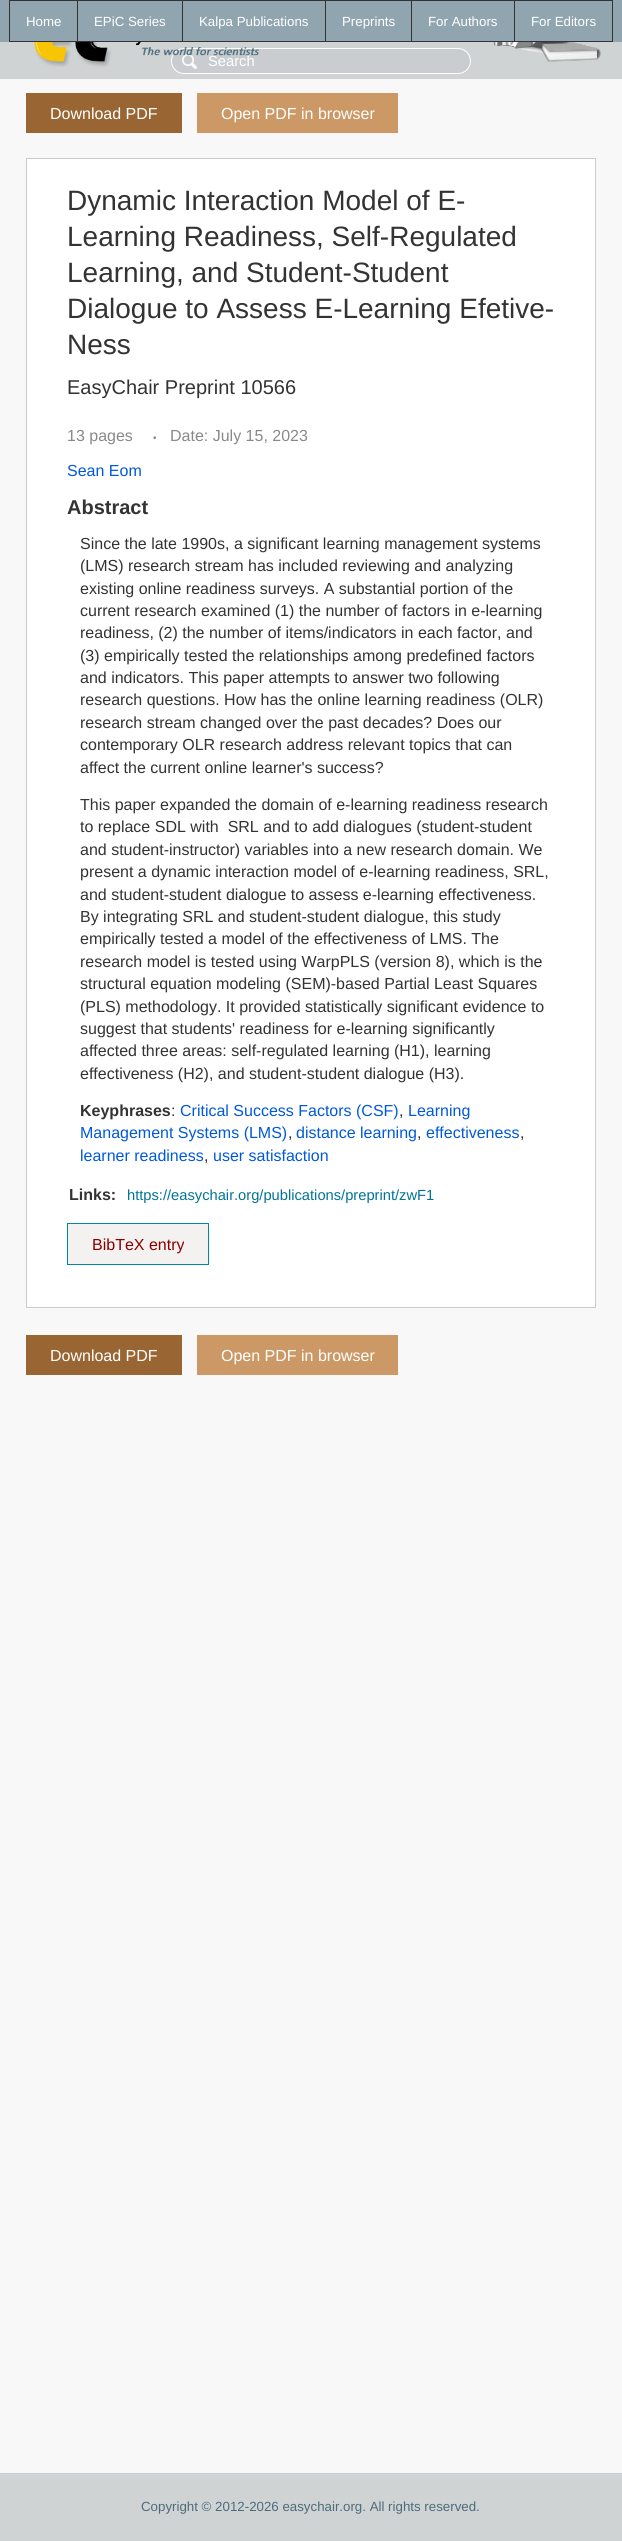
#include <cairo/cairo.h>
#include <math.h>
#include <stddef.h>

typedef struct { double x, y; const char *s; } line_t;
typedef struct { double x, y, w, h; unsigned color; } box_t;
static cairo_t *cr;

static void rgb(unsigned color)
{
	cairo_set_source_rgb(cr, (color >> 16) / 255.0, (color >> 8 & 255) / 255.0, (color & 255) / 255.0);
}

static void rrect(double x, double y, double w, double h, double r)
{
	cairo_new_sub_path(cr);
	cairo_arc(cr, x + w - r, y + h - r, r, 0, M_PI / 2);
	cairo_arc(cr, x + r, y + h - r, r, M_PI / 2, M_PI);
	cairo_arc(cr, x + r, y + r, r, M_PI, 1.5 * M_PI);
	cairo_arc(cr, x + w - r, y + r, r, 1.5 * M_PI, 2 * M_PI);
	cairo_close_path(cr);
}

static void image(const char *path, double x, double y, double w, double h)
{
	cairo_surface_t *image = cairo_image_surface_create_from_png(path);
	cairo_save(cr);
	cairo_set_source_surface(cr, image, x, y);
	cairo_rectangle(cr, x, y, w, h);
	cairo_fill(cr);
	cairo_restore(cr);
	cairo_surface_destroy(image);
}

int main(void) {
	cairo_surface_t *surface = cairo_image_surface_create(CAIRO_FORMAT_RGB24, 622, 2541);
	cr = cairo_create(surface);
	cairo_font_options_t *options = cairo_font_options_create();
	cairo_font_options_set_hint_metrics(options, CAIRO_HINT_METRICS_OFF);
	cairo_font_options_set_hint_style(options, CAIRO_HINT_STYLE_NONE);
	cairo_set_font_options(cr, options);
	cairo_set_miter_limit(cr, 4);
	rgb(0x90a5b0);
	cairo_paint(cr);
	{
		static const box_t items[] = {
			{514, 0, 99, 1, 0x333333},
			{612, 0, 1, 42, 0x333333},
			{514, 41, 99, 1, 0x333333},
			{514, 0, 1, 42, 0x333333},
			{411, 0, 104, 1, 0x333333},
			{411, 41, 104, 1, 0x333333},
			{411, 0, 1, 42, 0x333333},
			{325, 0, 87, 1, 0x333333},
			{325, 41, 87, 1, 0x333333},
			{325, 0, 1, 42, 0x333333},
			{182, 0, 144, 1, 0x333333},
			{182, 41, 144, 1, 0x333333},
			{182, 0, 1, 42, 0x333333},
			{77, 0, 106, 1, 0x333333},
			{77, 41, 106, 1, 0x333333},
			{77, 0, 1, 42, 0x333333},
			{9, 0, 69, 1, 0x333333},
			{9, 41, 69, 1, 0x333333},
			{9, 0, 1, 42, 0x333333},
			{0, 43, 621, 35, 0xd0d3d4},
			{0, 42, 622, 1, 0xd0d3d4},
		};
		for (size_t i = 0; i < sizeof items / sizeof *items; i++) {
			rgb(items[i].color);
			cairo_rectangle(cr, items[i].x, items[i].y, items[i].w, items[i].h);
			cairo_fill(cr);
		}
	}
	image("img/2.png", 494, 42, 107, 20);
	cairo_rectangle(cr, 621, 42, 1, 37);
	cairo_fill(cr);
	cairo_rectangle(cr, 0, 78, 622, 1);
	cairo_fill(cr);
	rgb(0xc9cdd0);
	rrect(171, 48, 300, 26, 13);
	cairo_fill(cr);
	image("img/3.png", 182, 54, 15, 15);
	rrect(171.5, 48.5, 299, 25, 12.5);
	rgb(0xffffff);
	cairo_set_line_width(cr, 1);
	cairo_stroke(cr);
	{
		static const box_t items[] = {
			{0, 79, 622, 2394, 0xf8f8f8},
			{26, 93, 156, 40, 0x996633},
			{197, 93, 201, 40, 0xcc9966},
		};
		for (size_t i = 0; i < sizeof items / sizeof *items; i++) {
			rgb(items[i].color);
			cairo_rectangle(cr, items[i].x, items[i].y, items[i].w, items[i].h);
			cairo_fill(cr);
		}
	}
	rgb(0xffffff);
	cairo_rectangle(cr, 26.5, 158.5, 569, 1149);
	cairo_fill_preserve(cr);
	rgb(0xcccccc);
	cairo_stroke(cr);
	rgb(0xf3f2f1);
	cairo_rectangle(cr, 67.5, 1223.5, 141, 41);
	cairo_fill_preserve(cr);
	rgb(0x0086a6);
	cairo_stroke(cr);
	{
		static const box_t items[] = {
			{26, 1335, 156, 40, 0x996633},
			{197, 1335, 201, 40, 0xcc9966},
			{0, 2474, 622, 67, 0xd0d3d4},
			{0, 2473, 622, 1, 0xcccccc},
		};
		for (size_t i = 0; i < sizeof items / sizeof *items; i++) {
			rgb(items[i].color);
			cairo_rectangle(cr, items[i].x, items[i].y, items[i].w, items[i].h);
			cairo_fill(cr);
		}
	}
	cairo_select_font_face(cr, "Liberation Sans", CAIRO_FONT_SLANT_NORMAL, CAIRO_FONT_WEIGHT_NORMAL);
	cairo_set_font_size(cr, 13.3);
	rgb(0xffffff);
	{
		static const line_t items[] = {
			{26, 26, "Home"},
			{94, 26, "EPiC Series"},
			{199, 26, "Kalpa Publications"},
			{342, 26, "Preprints"},
			{428, 26, "For Authors"},
			{531, 26, "For Editors"},
		};
		for (size_t i = 0; i < sizeof items / sizeof *items; i++) {
			cairo_move_to(cr, items[i].x, items[i].y);
			cairo_show_text(cr, items[i].s);
		}
	}
	cairo_set_font_size(cr, 14.7);
	cairo_move_to(cr, 208, 66);
	cairo_show_text(cr, "Search");
	image("img/1.png", 34, 42, 225, 25);
	cairo_set_font_size(cr, 16);
	cairo_move_to(cr, 50, 119);
	cairo_show_text(cr, "Download PDF");
	cairo_move_to(cr, 221, 119);
	cairo_show_text(cr, "Open PDF in browser");
	cairo_set_font_size(cr, 28);
	rgb(0x333333);
	{
		static const line_t items[] = {
			{67, 210, "Dynamic Interaction Model of E-"},
			{67, 246, "Learning Readiness, Self-Regulated"},
			{67, 282, "Learning, and Student-Student"},
			{67, 318, "Dialogue to Assess E-Learning Efetive-"},
			{67, 354, "Ness"},
		};
		for (size_t i = 0; i < sizeof items / sizeof *items; i++) {
			cairo_move_to(cr, items[i].x, items[i].y);
			cairo_show_text(cr, items[i].s);
		}
	}
	cairo_set_font_size(cr, 20);
	cairo_move_to(cr, 67, 394);
	cairo_show_text(cr, "EasyChair Preprint 10566");
	cairo_set_font_size(cr, 16);
	rgb(0x898989);
	cairo_move_to(cr, 67, 441);
	cairo_show_text(cr, "13 pages");
	cairo_set_font_size(cr, 10);
	cairo_move_to(cr, 153, 441);
	cairo_show_text(cr, "•");
	cairo_set_font_size(cr, 16);
	cairo_move_to(cr, 170, 441);
	cairo_show_text(cr, "Date: July 15, 2023");
	rgb(0x0059db);
	cairo_move_to(cr, 67, 476);
	cairo_show_text(cr, "Sean Eom");
	cairo_select_font_face(cr, "Liberation Sans", CAIRO_FONT_SLANT_NORMAL, CAIRO_FONT_WEIGHT_BOLD);
	cairo_set_font_size(cr, 20);
	rgb(0x333333);
	cairo_move_to(cr, 67, 514);
	cairo_show_text(cr, "Abstract");
	cairo_select_font_face(cr, "Liberation Sans", CAIRO_FONT_SLANT_NORMAL, CAIRO_FONT_WEIGHT_NORMAL);
	cairo_set_font_size(cr, 16);
	{
		static const line_t items[] = {
			{80, 549, "Since the late 1990s, a significant learning management systems"},
			{80, 571, "(LMS) research stream has included reviewing and analyzing"},
			{80, 594, "existing online readiness surveys. A substantial portion of the"},
			{80, 616, "current research examined (1) the number of factors in e-learning"},
			{80, 638, "readiness, (2) the number of items/indicators in each factor, and"},
			{80, 661, "(3) empirically tested the relationships among predefined factors"},
			{80, 683, "and indicators. This paper attempts to answer two following"},
			{80, 705, "research questions. How has the online learning readiness (OLR)"},
			{80, 728, "research stream changed over the past decades? Does our"},
			{80, 750, "contemporary OLR research address relevant topics that can"},
			{80, 773, "affect the current online learner's success?"},
			{80, 810, "This paper expanded the domain of e-learning readiness research"},
			{80, 832, "to replace SDL with  SRL and to add dialogues (student-student"},
			{80, 855, "and student-instructor) variables into a new research domain. We"},
			{80, 877, "present a dynamic interaction model of e-learning readiness, SRL,"},
			{80, 900, "and student-student dialogue to assess e-learning effectiveness."},
			{80, 922, "By integrating SRL and student-student dialogue, this study"},
			{80, 944, "empirically tested a model of the effectiveness of LMS. The"},
			{80, 967, "research model is tested using WarpPLS (version 8), which is the"},
			{80, 989, "structural equation modeling (SEM)-based Partial Least Squares"},
			{80, 1012, "(PLS) methodology. It provided statistically significant evidence to"},
			{80, 1034, "suggest that students' readiness for e-learning significantly"},
			{80, 1056, "affected three areas: self-regulated learning (H1), learning"},
			{80, 1079, "effectiveness (H2), and student-student dialogue (H3)."},
		};
		for (size_t i = 0; i < sizeof items / sizeof *items; i++) {
			cairo_move_to(cr, items[i].x, items[i].y);
			cairo_show_text(cr, items[i].s);
		}
	}
	cairo_select_font_face(cr, "Liberation Sans", CAIRO_FONT_SLANT_NORMAL, CAIRO_FONT_WEIGHT_BOLD);
	cairo_move_to(cr, 80, 1116);
	cairo_show_text(cr, "Keyphrases");
	cairo_select_font_face(cr, "Liberation Sans", CAIRO_FONT_SLANT_NORMAL, CAIRO_FONT_WEIGHT_NORMAL);
	cairo_move_to(cr, 171, 1116);
	cairo_show_text(cr, ":");
	rgb(0x0059db);
	cairo_move_to(cr, 180, 1116);
	cairo_show_text(cr, "Critical Success Factors (CSF)");
	cairo_move_to(cr, 408, 1116);
	cairo_show_text(cr, "Learning");
	rgb(0x333333);
	cairo_move_to(cr, 399, 1116);
	cairo_show_text(cr, ",");
	rgb(0x0059db);
	cairo_move_to(cr, 80, 1138);
	cairo_show_text(cr, "Management Systems (LMS)");
	rgb(0x333333);
	cairo_move_to(cr, 288, 1138);
	cairo_show_text(cr, ",");
	rgb(0x0059db);
	cairo_move_to(cr, 296, 1138);
	cairo_show_text(cr, "distance learning");
	rgb(0x333333);
	cairo_move_to(cr, 417, 1138);
	cairo_show_text(cr, ",");
	rgb(0x0059db);
	cairo_move_to(cr, 426, 1138);
	cairo_show_text(cr, "effectiveness");
	rgb(0x333333);
	cairo_move_to(cr, 520, 1138);
	cairo_show_text(cr, ",");
	rgb(0x0059db);
	cairo_move_to(cr, 80, 1161);
	cairo_show_text(cr, "learner readiness");
	rgb(0x333333);
	cairo_move_to(cr, 204, 1161);
	cairo_show_text(cr, ",");
	rgb(0x0059db);
	cairo_move_to(cr, 213, 1161);
	cairo_show_text(cr, "user satisfaction");
	cairo_select_font_face(cr, "Liberation Sans", CAIRO_FONT_SLANT_NORMAL, CAIRO_FONT_WEIGHT_BOLD);
	rgb(0x333333);
	cairo_move_to(cr, 69, 1200);
	cairo_show_text(cr, "Links:");
	cairo_select_font_face(cr, "Liberation Sans", CAIRO_FONT_SLANT_NORMAL, CAIRO_FONT_WEIGHT_NORMAL);
	cairo_set_font_size(cr, 14.7);
	rgb(0x007398);
	cairo_move_to(cr, 127, 1200);
	cairo_show_text(cr, "https://easychair.org/publications/preprint/zwF1");
	cairo_set_font_size(cr, 16);
	rgb(0x880000);
	cairo_move_to(cr, 92, 1250);
	cairo_show_text(cr, "BibTeX entry");
	rgb(0xffffff);
	cairo_move_to(cr, 50, 1361);
	cairo_show_text(cr, "Download PDF");
	cairo_move_to(cr, 221, 1361);
	cairo_show_text(cr, "Open PDF in browser");
	cairo_set_font_size(cr, 13.3);
	rgb(0x4c6c7c);
	cairo_move_to(cr, 141, 2511);
	cairo_show_text(cr, "Copyright © 2012-2026 easychair.org. All rights reserved.");
	cairo_surface_write_to_png(surface, "page.png");
	cairo_font_options_destroy(options);
	cairo_destroy(cr);
	cairo_surface_destroy(surface);
	return 0;
}
